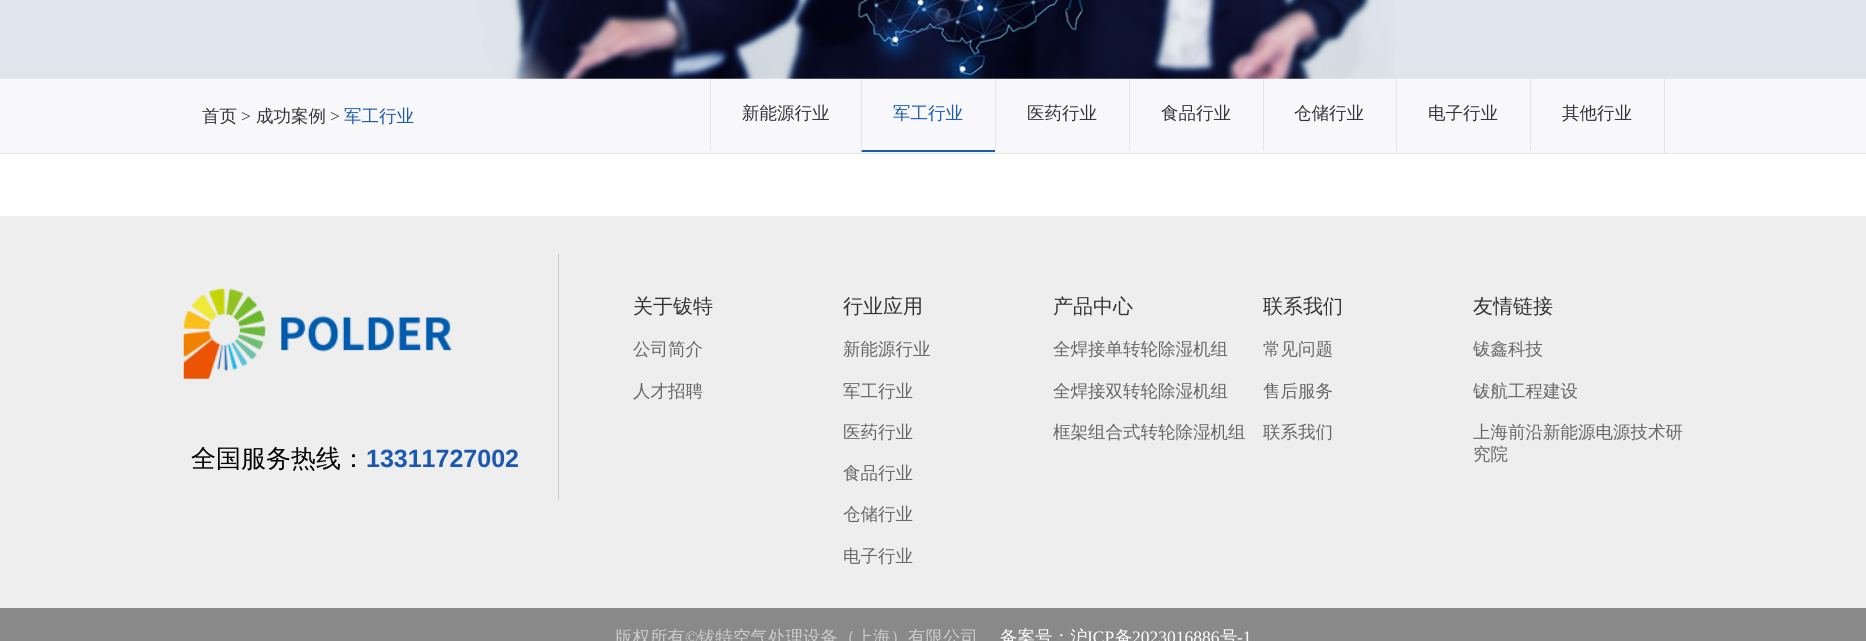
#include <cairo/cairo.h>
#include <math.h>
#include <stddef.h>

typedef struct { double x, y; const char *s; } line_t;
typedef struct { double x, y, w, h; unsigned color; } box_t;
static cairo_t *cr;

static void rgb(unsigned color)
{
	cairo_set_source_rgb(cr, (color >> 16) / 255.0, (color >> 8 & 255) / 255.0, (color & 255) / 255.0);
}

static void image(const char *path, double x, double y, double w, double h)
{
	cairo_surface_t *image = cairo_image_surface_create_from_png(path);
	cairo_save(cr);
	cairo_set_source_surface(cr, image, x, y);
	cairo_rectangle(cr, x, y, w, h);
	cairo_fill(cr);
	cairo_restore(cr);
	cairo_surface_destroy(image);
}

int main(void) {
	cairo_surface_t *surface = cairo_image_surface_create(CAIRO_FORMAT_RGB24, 1866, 641);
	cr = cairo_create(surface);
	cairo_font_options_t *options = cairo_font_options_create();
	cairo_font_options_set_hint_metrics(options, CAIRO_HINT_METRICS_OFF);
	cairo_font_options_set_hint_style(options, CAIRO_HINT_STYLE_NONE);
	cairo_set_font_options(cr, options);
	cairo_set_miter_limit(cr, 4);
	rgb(0xffffff);
	cairo_paint(cr);
	image("img/1.png", 0, 0, 1866, 79);
	{
		static const box_t items[] = {
			{0, 79, 1866, 74, 0xf8f8fb},
			{0, 153, 1866, 1, 0xe4e5e8},
			{1664, 79, 1, 74, 0xe4e5e8},
			{710, 79, 1, 71, 0xe4e5e8},
		};
		for (size_t i = 0; i < sizeof items / sizeof *items; i++) {
			rgb(items[i].color);
			cairo_rectangle(cr, items[i].x, items[i].y, items[i].w, items[i].h);
			cairo_fill(cr);
		}
	}
	rgb(0x1a58b2);
	cairo_new_path(cr);
	cairo_move_to(cr, 995, 152);
	cairo_line_to(cr, 861, 152);
	cairo_line_to(cr, 862, 150);
	cairo_line_to(cr, 995, 150);
	cairo_close_path(cr);
	cairo_fill(cr);
	rgb(0xe4e5e8);
	cairo_new_path(cr);
	cairo_move_to(cr, 861, 152);
	cairo_line_to(cr, 861, 79);
	cairo_line_to(cr, 862, 79);
	cairo_line_to(cr, 862, 150);
	cairo_close_path(cr);
	cairo_fill(cr);
	{
		static const box_t items[] = {
			{995, 79, 1, 71, 0xe4e5e8},
			{1129, 79, 1, 71, 0xe4e5e8},
			{1263, 79, 1, 71, 0xe4e5e8},
			{1396, 79, 1, 71, 0xe4e5e8},
			{1530, 79, 1, 71, 0xe4e5e8},
			{0, 216, 1866, 392, 0xeeeeee},
			{558, 254, 1, 246, 0xcccccc},
		};
		for (size_t i = 0; i < sizeof items / sizeof *items; i++) {
			rgb(items[i].color);
			cairo_rectangle(cr, items[i].x, items[i].y, items[i].w, items[i].h);
			cairo_fill(cr);
		}
	}
	image("img/2.png", 183, 288, 269, 91);
	rgb(0x898989);
	cairo_rectangle(cr, 0, 608, 1866, 33);
	cairo_fill(cr);
	cairo_select_font_face(cr, "WenQuanYi Zen Hei Medium", CAIRO_FONT_SLANT_NORMAL, CAIRO_FONT_WEIGHT_NORMAL);
	cairo_set_font_size(cr, 17.5);
	rgb(0x333333);
	cairo_move_to(cr, 202, 122);
	cairo_show_text(cr, "首页");
	cairo_select_font_face(cr, "Liberation Serif", CAIRO_FONT_SLANT_NORMAL, CAIRO_FONT_WEIGHT_NORMAL);
	cairo_move_to(cr, 241, 122);
	cairo_show_text(cr, ">");
	cairo_select_font_face(cr, "WenQuanYi Zen Hei Medium", CAIRO_FONT_SLANT_NORMAL, CAIRO_FONT_WEIGHT_NORMAL);
	cairo_move_to(cr, 256, 122);
	cairo_show_text(cr, "成功案例");
	cairo_select_font_face(cr, "Liberation Serif", CAIRO_FONT_SLANT_NORMAL, CAIRO_FONT_WEIGHT_NORMAL);
	cairo_move_to(cr, 330, 122);
	cairo_show_text(cr, ">");
	cairo_select_font_face(cr, "WenQuanYi Zen Hei Medium", CAIRO_FONT_SLANT_NORMAL, CAIRO_FONT_WEIGHT_NORMAL);
	rgb(0x1a58b2);
	cairo_move_to(cr, 344, 122);
	cairo_show_text(cr, "军工行业");
	rgb(0x333333);
	cairo_move_to(cr, 742, 119);
	cairo_show_text(cr, "新能源行业");
	rgb(0x1a58b2);
	cairo_move_to(cr, 893, 119);
	cairo_show_text(cr, "军工行业");
	rgb(0x333333);
	{
		static const line_t items[] = {
			{1027, 119, "医药行业"},
			{1161, 119, "食品行业"},
			{1294, 119, "仓储行业"},
			{1428, 119, "电子行业"},
			{1562, 119, "其他行业"},
		};
		for (size_t i = 0; i < sizeof items / sizeof *items; i++) {
			cairo_move_to(cr, items[i].x, items[i].y);
			cairo_show_text(cr, items[i].s);
		}
	}
	cairo_set_font_size(cr, 25);
	rgb(0x000000);
	cairo_move_to(cr, 191, 467);
	cairo_show_text(cr, "全国服务热线：");
	cairo_select_font_face(cr, "Liberation Sans", CAIRO_FONT_SLANT_NORMAL, CAIRO_FONT_WEIGHT_BOLD);
	rgb(0x1a58b2);
	cairo_move_to(cr, 366, 467);
	cairo_show_text(cr, "13311727002");
	cairo_select_font_face(cr, "WenQuanYi Zen Hei Medium", CAIRO_FONT_SLANT_NORMAL, CAIRO_FONT_WEIGHT_NORMAL);
	cairo_set_font_size(cr, 20);
	rgb(0x333333);
	cairo_move_to(cr, 633, 313);
	cairo_show_text(cr, "关于钹特");
	cairo_set_font_size(cr, 17.5);
	rgb(0x666666);
	cairo_move_to(cr, 633, 355);
	cairo_show_text(cr, "公司简介");
	cairo_move_to(cr, 633, 397);
	cairo_show_text(cr, "人才招聘");
	cairo_set_font_size(cr, 20);
	rgb(0x333333);
	cairo_move_to(cr, 843, 313);
	cairo_show_text(cr, "行业应用");
	cairo_set_font_size(cr, 17.5);
	rgb(0x666666);
	{
		static const line_t items[] = {
			{843, 355, "新能源行业"},
			{843, 397, "军工行业"},
			{843, 438, "医药行业"},
			{843, 479, "食品行业"},
			{843, 520, "仓储行业"},
			{843, 562, "电子行业"},
		};
		for (size_t i = 0; i < sizeof items / sizeof *items; i++) {
			cairo_move_to(cr, items[i].x, items[i].y);
			cairo_show_text(cr, items[i].s);
		}
	}
	cairo_set_font_size(cr, 20);
	rgb(0x333333);
	cairo_move_to(cr, 1053, 313);
	cairo_show_text(cr, "产品中心");
	cairo_set_font_size(cr, 17.5);
	rgb(0x666666);
	{
		static const line_t items[] = {
			{1053, 355, "全焊接单转轮除湿机组"},
			{1053, 397, "全焊接双转轮除湿机组"},
			{1053, 438, "框架组合式转轮除湿机组"},
		};
		for (size_t i = 0; i < sizeof items / sizeof *items; i++) {
			cairo_move_to(cr, items[i].x, items[i].y);
			cairo_show_text(cr, items[i].s);
		}
	}
	cairo_set_font_size(cr, 20);
	rgb(0x333333);
	cairo_move_to(cr, 1263, 313);
	cairo_show_text(cr, "联系我们");
	cairo_set_font_size(cr, 17.5);
	rgb(0x666666);
	{
		static const line_t items[] = {
			{1263, 355, "常见问题"},
			{1263, 397, "售后服务"},
			{1263, 438, "联系我们"},
		};
		for (size_t i = 0; i < sizeof items / sizeof *items; i++) {
			cairo_move_to(cr, items[i].x, items[i].y);
			cairo_show_text(cr, items[i].s);
		}
	}
	cairo_set_font_size(cr, 20);
	rgb(0x333333);
	cairo_move_to(cr, 1473, 313);
	cairo_show_text(cr, "友情链接");
	cairo_set_font_size(cr, 17.5);
	rgb(0x666666);
	{
		static const line_t items[] = {
			{1473, 355, "钹鑫科技"},
			{1473, 397, "钹航工程建设"},
			{1473, 438, "上海前沿新能源电源技术研"},
			{1473, 460, "究院"},
		};
		for (size_t i = 0; i < sizeof items / sizeof *items; i++) {
			cairo_move_to(cr, items[i].x, items[i].y);
			cairo_show_text(cr, items[i].s);
		}
	}
	rgb(0xcccccc);
	cairo_move_to(cr, 615, 643);
	cairo_show_text(cr, "版权所有");
	cairo_select_font_face(cr, "Liberation Serif", CAIRO_FONT_SLANT_NORMAL, CAIRO_FONT_WEIGHT_NORMAL);
	cairo_move_to(cr, 685, 643);
	cairo_show_text(cr, "©");
	cairo_select_font_face(cr, "WenQuanYi Zen Hei Medium", CAIRO_FONT_SLANT_NORMAL, CAIRO_FONT_WEIGHT_NORMAL);
	cairo_move_to(cr, 698, 643);
	cairo_show_text(cr, "钹特空气处理设备（上海）有限公司");
	rgb(0xffffff);
	cairo_move_to(cr, 1000, 643);
	cairo_show_text(cr, "备案号：沪");
	cairo_select_font_face(cr, "Liberation Serif", CAIRO_FONT_SLANT_NORMAL, CAIRO_FONT_WEIGHT_NORMAL);
	cairo_move_to(cr, 1087, 643);
	cairo_show_text(cr, "ICP");
	cairo_select_font_face(cr, "WenQuanYi Zen Hei Medium", CAIRO_FONT_SLANT_NORMAL, CAIRO_FONT_WEIGHT_NORMAL);
	cairo_move_to(cr, 1115, 643);
	cairo_show_text(cr, "备");
	cairo_select_font_face(cr, "Liberation Serif", CAIRO_FONT_SLANT_NORMAL, CAIRO_FONT_WEIGHT_NORMAL);
	cairo_move_to(cr, 1132, 643);
	cairo_show_text(cr, "2023016886");
	cairo_select_font_face(cr, "WenQuanYi Zen Hei Medium", CAIRO_FONT_SLANT_NORMAL, CAIRO_FONT_WEIGHT_NORMAL);
	cairo_move_to(cr, 1220, 643);
	cairo_show_text(cr, "号");
	cairo_select_font_face(cr, "Liberation Serif", CAIRO_FONT_SLANT_NORMAL, CAIRO_FONT_WEIGHT_NORMAL);
	cairo_move_to(cr, 1237, 643);
	cairo_show_text(cr, "-1");
	cairo_surface_write_to_png(surface, "page.png");
	cairo_font_options_destroy(options);
	cairo_destroy(cr);
	cairo_surface_destroy(surface);
	return 0;
}
